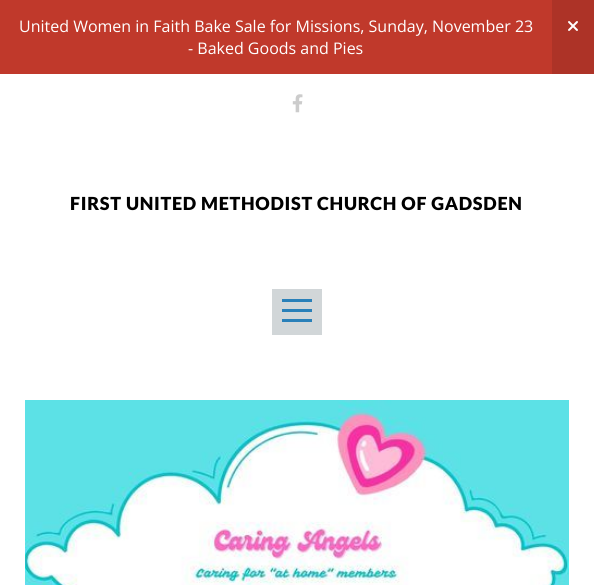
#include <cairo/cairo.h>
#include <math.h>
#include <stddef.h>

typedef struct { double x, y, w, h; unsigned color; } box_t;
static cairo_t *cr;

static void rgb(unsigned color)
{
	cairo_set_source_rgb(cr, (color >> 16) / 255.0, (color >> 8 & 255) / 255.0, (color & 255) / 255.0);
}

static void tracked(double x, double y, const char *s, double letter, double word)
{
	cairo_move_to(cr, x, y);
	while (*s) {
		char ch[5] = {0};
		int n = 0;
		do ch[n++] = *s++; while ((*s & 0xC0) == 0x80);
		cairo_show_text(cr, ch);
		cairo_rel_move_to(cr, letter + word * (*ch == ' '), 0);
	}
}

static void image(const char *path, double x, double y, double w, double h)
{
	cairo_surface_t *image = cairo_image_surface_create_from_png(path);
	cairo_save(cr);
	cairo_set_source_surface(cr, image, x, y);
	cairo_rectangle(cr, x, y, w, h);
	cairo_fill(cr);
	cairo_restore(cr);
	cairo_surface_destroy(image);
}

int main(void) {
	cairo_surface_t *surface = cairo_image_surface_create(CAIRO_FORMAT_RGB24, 594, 585);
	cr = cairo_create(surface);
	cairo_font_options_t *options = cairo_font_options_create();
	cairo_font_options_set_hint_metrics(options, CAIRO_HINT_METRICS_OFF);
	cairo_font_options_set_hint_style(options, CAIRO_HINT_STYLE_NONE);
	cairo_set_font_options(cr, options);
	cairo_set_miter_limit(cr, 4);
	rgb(0xffffff);
	cairo_paint(cr);
	rgb(0xc0392b);
	cairo_rectangle(cr, 0, 0, 552, 74);
	cairo_fill(cr);
	rgb(0xad3327);
	cairo_rectangle(cr, 552, 0, 42, 74);
	cairo_fill(cr);
	image("img/1.png", 568, 21, 10, 10);
	image("img/2.png", 292, 94, 11, 19);
	cairo_rectangle(cr, 277, 294, 40, 36);
	rgb(0xd1d6d8);
	cairo_set_line_width(cr, 10);
	cairo_stroke(cr);
	{
		static const box_t items[] = {
			{282, 302, 30, 23, 0xd1d6d8},
			{282, 299, 30, 3, 0x2980b9},
			{282, 309, 30, 3, 0x2980b9},
			{282, 319, 30, 3, 0x2980b9},
		};
		for (size_t i = 0; i < sizeof items / sizeof *items; i++) {
			rgb(items[i].color);
			cairo_rectangle(cr, items[i].x, items[i].y, items[i].w, items[i].h);
			cairo_fill(cr);
		}
	}
	image("img/3.png", 25, 400, 544, 185);
	cairo_select_font_face(cr, "Open Sans", CAIRO_FONT_SLANT_NORMAL, CAIRO_FONT_WEIGHT_NORMAL);
	cairo_set_font_size(cr, 16);
	rgb(0xffffff);
	cairo_move_to(cr, 19, 32);
	cairo_show_text(cr, "United Women in Faith Bake Sale for Missions, Sunday, November 23");
	cairo_move_to(cr, 188, 54);
	cairo_show_text(cr, "- Baked Goods and Pies");
	cairo_select_font_face(cr, "Lato Black", CAIRO_FONT_SLANT_NORMAL, CAIRO_FONT_WEIGHT_NORMAL);
	cairo_set_font_size(cr, 18);
	rgb(0x000000);
	tracked(70, 210, "FIRST UNITED METHODIST CHURCH OF GADSDEN", 0.7, 0);
	cairo_surface_write_to_png(surface, "page.png");
	cairo_font_options_destroy(options);
	cairo_destroy(cr);
	cairo_surface_destroy(surface);
	return 0;
}
